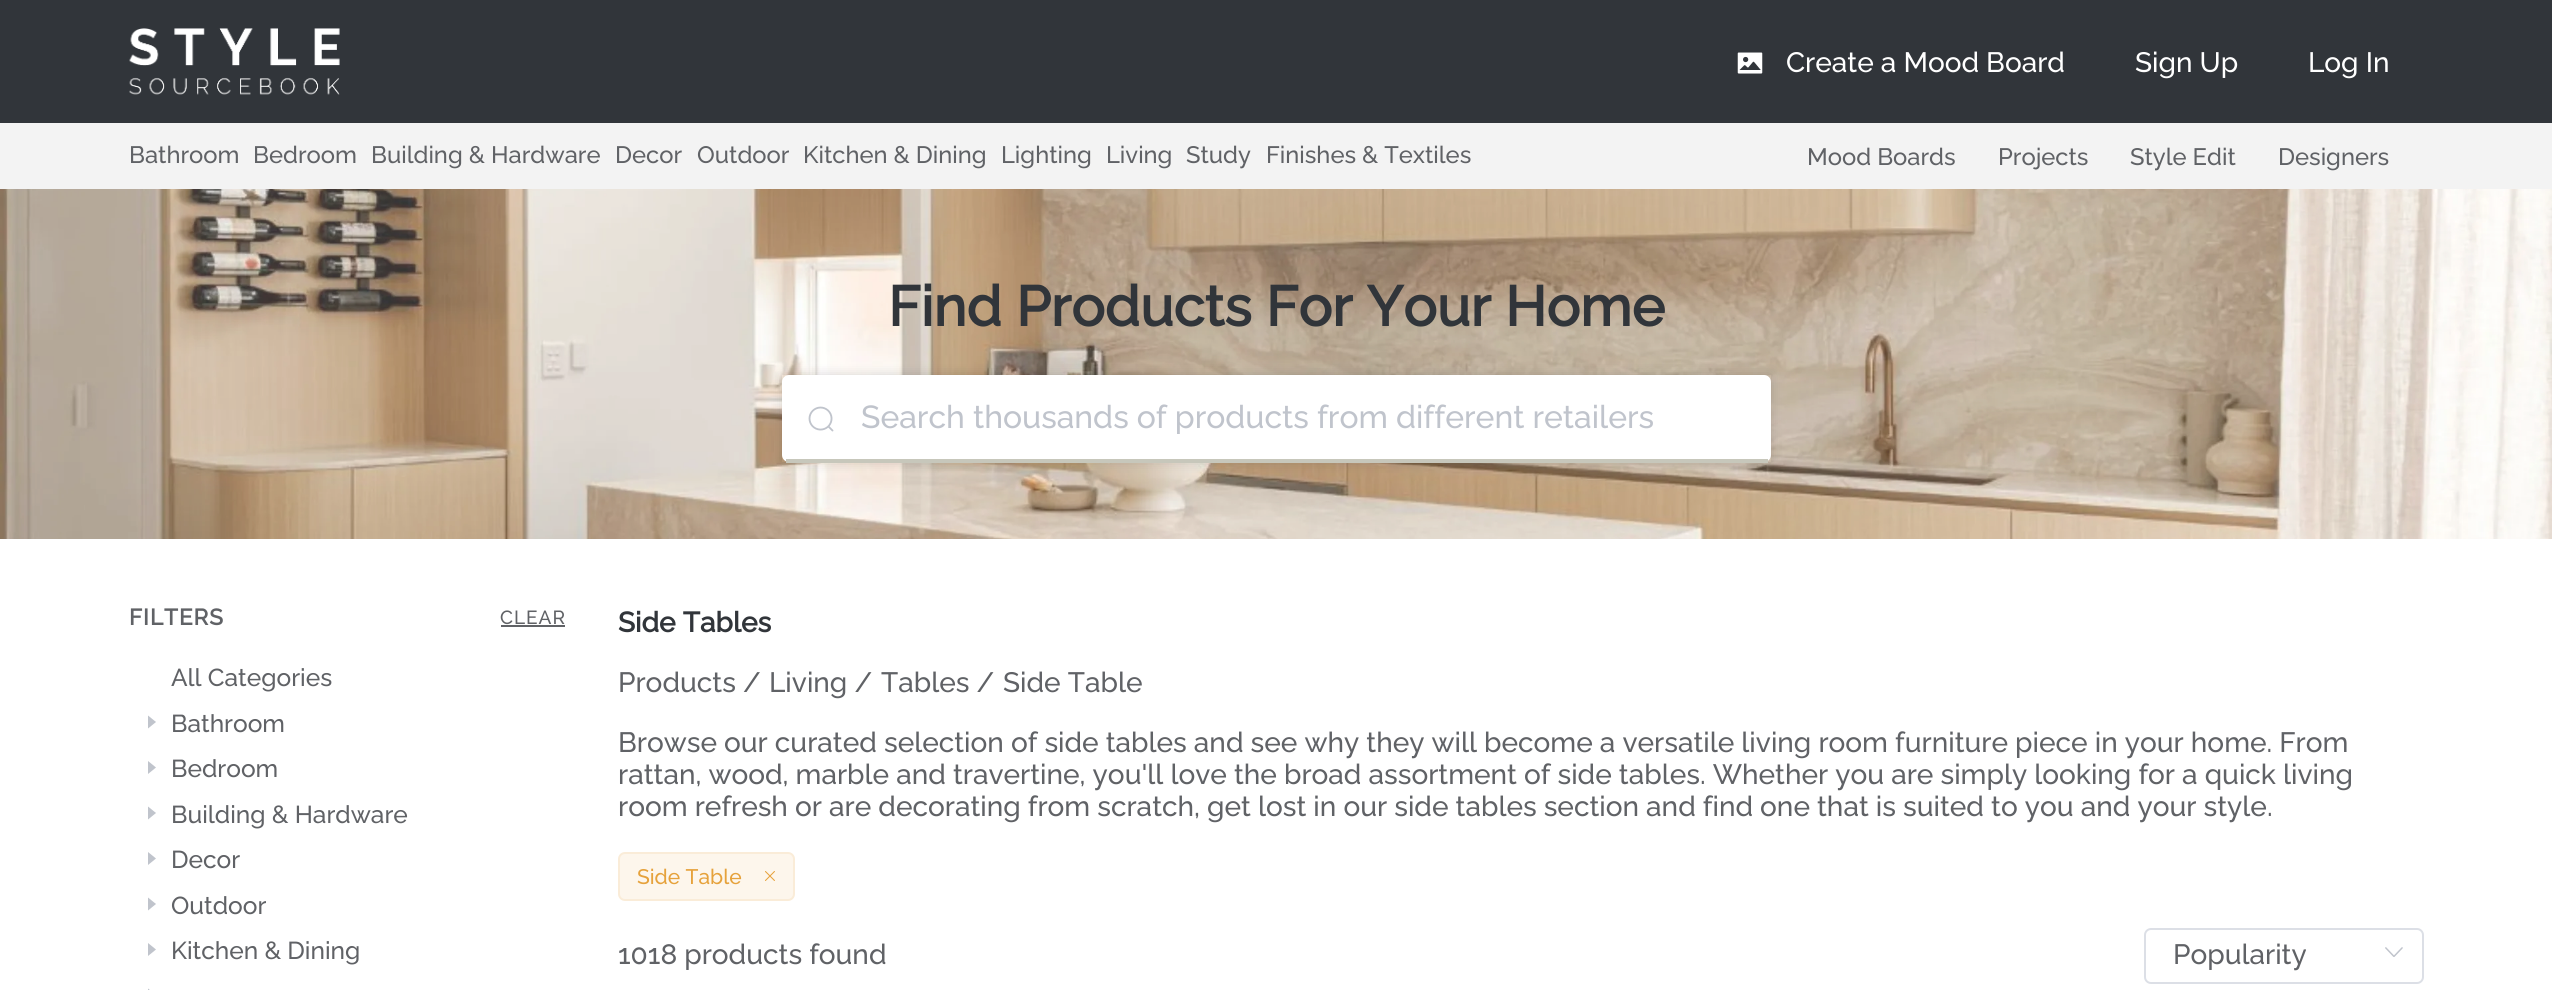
#include <cairo/cairo.h>
#include <math.h>
#include <stddef.h>

typedef struct { double x, y; const char *s; } line_t;
static cairo_t *cr;

static void rgb(unsigned color)
{
	cairo_set_source_rgb(cr, (color >> 16) / 255.0, (color >> 8 & 255) / 255.0, (color & 255) / 255.0);
}

static void tracked(double x, double y, const char *s, double letter, double word)
{
	cairo_move_to(cr, x, y);
	while (*s) {
		char ch[5] = {0};
		int n = 0;
		do ch[n++] = *s++; while ((*s & 0xC0) == 0x80);
		cairo_show_text(cr, ch);
		cairo_rel_move_to(cr, letter + word * (*ch == ' '), 0);
	}
}

static void rrect(double x, double y, double w, double h, double r)
{
	cairo_new_sub_path(cr);
	cairo_arc(cr, x + w - r, y + h - r, r, 0, M_PI / 2);
	cairo_arc(cr, x + r, y + h - r, r, M_PI / 2, M_PI);
	cairo_arc(cr, x + r, y + r, r, M_PI, 1.5 * M_PI);
	cairo_arc(cr, x + w - r, y + r, r, 1.5 * M_PI, 2 * M_PI);
	cairo_close_path(cr);
}

static void soft_shadow(double x, double y, double w, double h, double r, double blur, double alpha)
{
	cairo_push_group_with_content(cr, CAIRO_CONTENT_ALPHA);
	cairo_set_operator(cr, CAIRO_OPERATOR_SOURCE);
	for (int i = 15; i >= -15 && fmin(w, h) + blur * i / 3 > 0; i -= 2) {
		double e = blur * i / 6;
		cairo_set_source_rgba(cr, 0, 0, 0, alpha * erfc((i - 1) / 8.5) / 2);
		rrect(x - e, y - e, w + 2 * e, h + 2 * e, fmax(0, fmin(r + e + blur * .6, fmin(w, h) / 2 + e)));
		cairo_fill(cr);
	}
	cairo_pattern_t *soft = cairo_pop_group(cr);
	cairo_mask(cr, soft);
	cairo_pattern_destroy(soft);
}

static void image(const char *path, double x, double y, double w, double h)
{
	cairo_surface_t *image = cairo_image_surface_create_from_png(path);
	cairo_save(cr);
	cairo_set_source_surface(cr, image, x, y);
	cairo_rectangle(cr, x, y, w, h);
	cairo_fill(cr);
	cairo_restore(cr);
	cairo_surface_destroy(image);
}

int main(void) {
	cairo_surface_t *surface = cairo_image_surface_create(CAIRO_FORMAT_RGB24, 2552, 990);
	cr = cairo_create(surface);
	cairo_font_options_t *options = cairo_font_options_create();
	cairo_font_options_set_hint_metrics(options, CAIRO_HINT_METRICS_OFF);
	cairo_font_options_set_hint_style(options, CAIRO_HINT_STYLE_NONE);
	cairo_set_font_options(cr, options);
	cairo_set_miter_limit(cr, 4);
	rgb(0xffffff);
	cairo_paint(cr);
	rgb(0xf3f3f3);
	cairo_rectangle(cr, 0, 123, 2552, 66);
	cairo_fill(cr);
	rgb(0x31353a);
	cairo_rectangle(cr, 0, 0, 2552, 123);
	cairo_fill(cr);
	image("img/1.png", 129, 28, 211, 67);
	image("img/2.png", 1737, 52, 26, 22);
	image("img/3.png", 0, 189, 2552, 350);
	cairo_save(cr);
	cairo_set_fill_rule(cr, CAIRO_FILL_RULE_EVEN_ODD);
	cairo_new_path(cr);
	cairo_move_to(cr, 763, 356);
	cairo_line_to(cr, 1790, 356);
	cairo_line_to(cr, 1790, 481);
	cairo_line_to(cr, 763, 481);
	cairo_close_path(cr);
	cairo_move_to(cr, 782, 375);
	cairo_line_to(cr, 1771, 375);
	cairo_line_to(cr, 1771, 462);
	cairo_line_to(cr, 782, 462);
	cairo_close_path(cr);
	cairo_clip(cr);
	rgb(0x000000);
	soft_shadow(782, 375, 989, 87, 0, 6, 0.15);
	cairo_restore(cr);
	rgb(0xffffff);
	rrect(782, 375, 989, 87, 7);
	cairo_fill(cr);
	image("img/4.png", 808, 406, 26, 26);
	rgb(0xc7c7bb);
	cairo_rectangle(cr, 786, 459, 982, 4);
	cairo_fill(cr);
	rgb(0x606266);
	cairo_rectangle(cr, 501, 625, 64, 2);
	cairo_fill(cr);
	rgb(0xc0c4cc);
	cairo_new_path(cr);
	cairo_move_to(cr, 148, 715.5);
	cairo_line_to(cr, 148, 728.5);
	cairo_line_to(cr, 156, 722);
	cairo_close_path(cr);
	cairo_move_to(cr, 148, 761);
	cairo_line_to(cr, 148, 774);
	cairo_line_to(cr, 156, 767.5);
	cairo_close_path(cr);
	cairo_fill(cr);
	cairo_new_path(cr);
	cairo_move_to(cr, 148, 806.5);
	cairo_line_to(cr, 148, 819.5);
	cairo_line_to(cr, 156, 813);
	cairo_close_path(cr);
	cairo_move_to(cr, 148, 852);
	cairo_line_to(cr, 148, 865);
	cairo_line_to(cr, 156, 858.5);
	cairo_close_path(cr);
	cairo_fill(cr);
	cairo_new_path(cr);
	cairo_move_to(cr, 148, 897.5);
	cairo_line_to(cr, 148, 910.5);
	cairo_line_to(cr, 156, 904);
	cairo_close_path(cr);
	cairo_move_to(cr, 148, 943);
	cairo_line_to(cr, 148, 956);
	cairo_line_to(cr, 156, 949.5);
	cairo_close_path(cr);
	cairo_fill(cr);
	cairo_new_path(cr);
	cairo_move_to(cr, 148, 988.5);
	cairo_line_to(cr, 148, 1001.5);
	cairo_line_to(cr, 156, 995);
	cairo_close_path(cr);
	cairo_fill(cr);
	rgb(0xfdf6ec);
	rrect(619, 853, 175, 47, 6);
	cairo_fill_preserve(cr);
	rgb(0xfaecd8);
	cairo_stroke(cr);
	image("img/5.png", 765, 871, 10, 10);
	rrect(2145, 929, 278, 54, 6);
	rgb(0xdcdfe6);
	cairo_stroke(cr);
	image("img/6.png", 2385, 947, 18, 10);
	cairo_select_font_face(cr, "Raleway Medium", CAIRO_FONT_SLANT_NORMAL, CAIRO_FONT_WEIGHT_NORMAL);
	cairo_set_font_size(cr, 28);
	rgb(0xffffff);
	{
		static const line_t items[] = {
			{1786, 72, "Create a Mood Board"},
			{2135, 72, "Sign Up"},
			{2308, 72, "Log In"},
		};
		for (size_t i = 0; i < sizeof items / sizeof *items; i++) {
			cairo_move_to(cr, items[i].x, items[i].y);
			cairo_show_text(cr, items[i].s);
		}
	}
	cairo_set_font_size(cr, 23.75);
	rgb(0x606266);
	{
		static const line_t items[] = {
			{129, 163, "Bathroom"},
			{253, 163, "Bedroom"},
			{371, 163, "Building & Hardware"},
			{615, 163, "Decor"},
			{697, 163, "Outdoor"},
			{803, 163, "Kitchen & Dining"},
			{1001, 163, "Lighting"},
			{1106, 163, "Living"},
			{1186, 163, "Study"},
			{1266, 163, "Finishes & Textiles"},
			{1807, 165, "Mood Boards"},
			{1998, 165, "Projects"},
			{2130, 165, "Style Edit"},
			{2278, 165, "Designers"},
		};
		for (size_t i = 0; i < sizeof items / sizeof *items; i++) {
			cairo_move_to(cr, items[i].x, items[i].y);
			cairo_show_text(cr, items[i].s);
		}
	}
	cairo_select_font_face(cr, "Raleway", CAIRO_FONT_SLANT_NORMAL, CAIRO_FONT_WEIGHT_BOLD);
	cairo_set_font_size(cr, 56);
	rgb(0x31353a);
	cairo_move_to(cr, 888, 326);
	cairo_show_text(cr, "Find Products For Your Home");
	cairo_save(cr);
	cairo_rectangle(cr, 861, 397, 856, 37);
	cairo_clip(cr);
	cairo_select_font_face(cr, "Raleway Medium", CAIRO_FONT_SLANT_NORMAL, CAIRO_FONT_WEIGHT_NORMAL);
	cairo_set_font_size(cr, 31.85);
	rgb(0xc0c4cc);
	cairo_move_to(cr, 861, 428);
	cairo_show_text(cr, "Search thousands of products from different retailers");
	cairo_restore(cr);
	cairo_set_font_size(cr, 22.5);
	rgb(0x606266);
	tracked(129, 625, "FILTERS", 1, 0);
	cairo_select_font_face(cr, "Raleway Medium", CAIRO_FONT_SLANT_NORMAL, CAIRO_FONT_WEIGHT_NORMAL);
	cairo_set_font_size(cr, 19);
	tracked(500, 624, "CLEAR", 1, 0);
	cairo_set_font_size(cr, 24.5);
	{
		static const line_t items[] = {
			{171, 686, "All Categories"},
			{171, 732, "Bathroom"},
			{171, 777, "Bedroom"},
			{171, 823, "Building & Hardware"},
			{171, 868, "Decor"},
			{171, 914, "Outdoor"},
			{171, 959, "Kitchen & Dining"},
		};
		for (size_t i = 0; i < sizeof items / sizeof *items; i++) {
			cairo_move_to(cr, items[i].x, items[i].y);
			cairo_show_text(cr, items[i].s);
		}
	}
	cairo_select_font_face(cr, "Raleway", CAIRO_FONT_SLANT_NORMAL, CAIRO_FONT_WEIGHT_BOLD);
	cairo_set_font_size(cr, 28);
	rgb(0x31353a);
	cairo_move_to(cr, 618, 632);
	cairo_show_text(cr, "Side Tables");
	cairo_select_font_face(cr, "Raleway Medium", CAIRO_FONT_SLANT_NORMAL, CAIRO_FONT_WEIGHT_NORMAL);
	rgb(0x606266);
	{
		static const line_t items[] = {
			{618, 692, "Products /"},
			{769, 692, "Living /"},
			{881, 692, "Tables /"},
			{1003, 692, "Side Table"},
			{618, 752, "Browse our curated selection of side tables and see why they will become a versatile living room furniture piece in your home. From"},
			{618, 784, "rattan, wood, marble and travertine, you'll love the broad assortment of side tables. Whether you are simply looking for a quick living"},
			{618, 816, "room refresh or are decorating from scratch, get lost in our side tables section and find one that is suited to you and your style."},
		};
		for (size_t i = 0; i < sizeof items / sizeof *items; i++) {
			cairo_move_to(cr, items[i].x, items[i].y);
			cairo_show_text(cr, items[i].s);
		}
	}
	cairo_set_font_size(cr, 21);
	rgb(0xe6a23c);
	cairo_move_to(cr, 637, 884);
	cairo_show_text(cr, "Side Table");
	cairo_set_font_size(cr, 28);
	rgb(0x606266);
	cairo_move_to(cr, 618, 964);
	cairo_show_text(cr, "1018 products found");
	cairo_move_to(cr, 2173, 964);
	cairo_show_text(cr, "Popularity");
	cairo_surface_write_to_png(surface, "page.png");
	cairo_font_options_destroy(options);
	cairo_destroy(cr);
	cairo_surface_destroy(surface);
	return 0;
}
